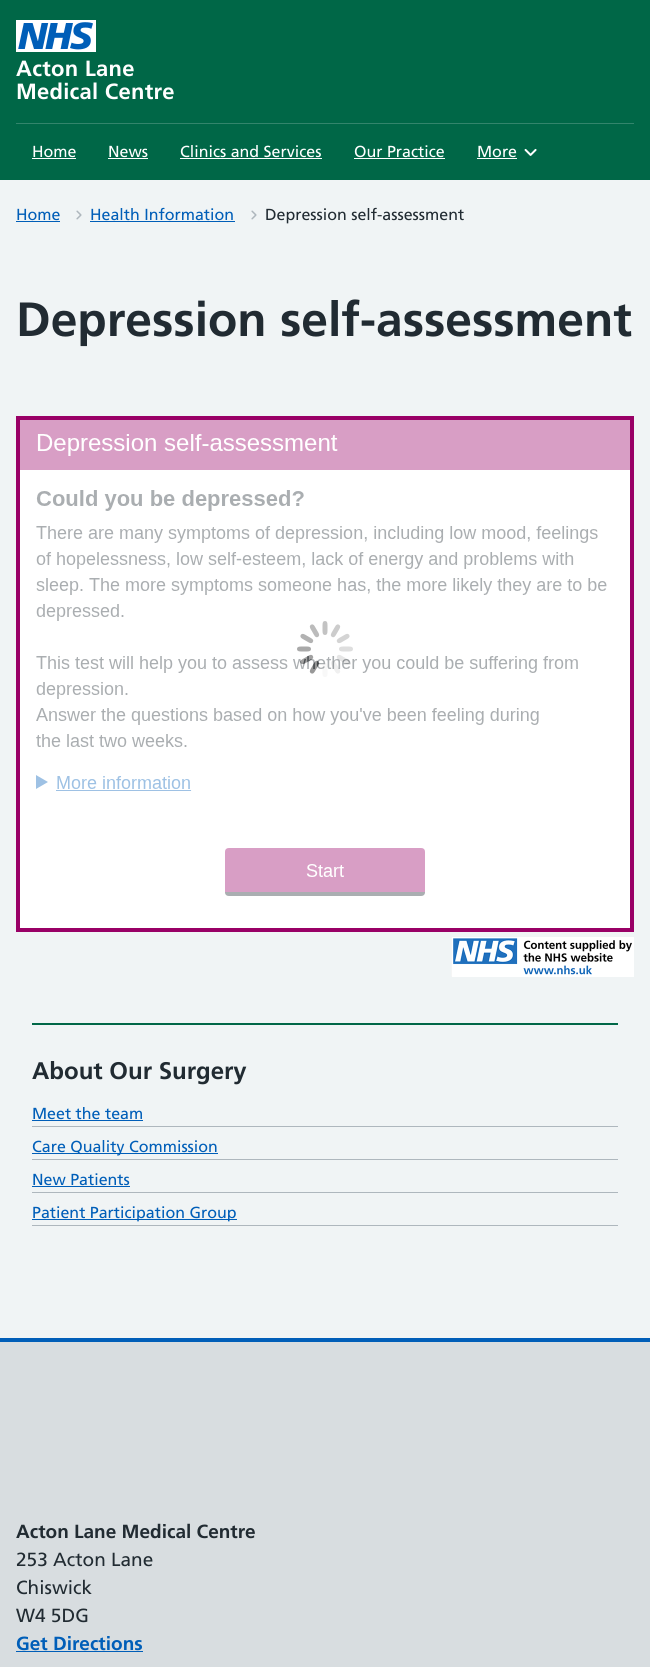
#include <cairo/cairo.h>
#include <math.h>
#include <stddef.h>

typedef struct { double x, y; const char *s; } line_t;
typedef struct { double x, y, w, h; unsigned color; } box_t;
static cairo_t *cr;

static void rgb(unsigned color)
{
	cairo_set_source_rgb(cr, (color >> 16) / 255.0, (color >> 8 & 255) / 255.0, (color & 255) / 255.0);
}

static void tracked(double x, double y, const char *s, double letter, double word)
{
	cairo_move_to(cr, x, y);
	while (*s) {
		char ch[5] = {0};
		int n = 0;
		do ch[n++] = *s++; while ((*s & 0xC0) == 0x80);
		cairo_show_text(cr, ch);
		cairo_rel_move_to(cr, letter + word * (*ch == ' '), 0);
	}
}

static void image(const char *path, double x, double y, double w, double h)
{
	cairo_surface_t *image = cairo_image_surface_create_from_png(path);
	cairo_save(cr);
	cairo_set_source_surface(cr, image, x, y);
	cairo_rectangle(cr, x, y, w, h);
	cairo_fill(cr);
	cairo_restore(cr);
	cairo_surface_destroy(image);
}

int main(void) {
	cairo_surface_t *surface = cairo_image_surface_create(CAIRO_FORMAT_RGB24, 650, 1667);
	cr = cairo_create(surface);
	cairo_font_options_t *options = cairo_font_options_create();
	cairo_font_options_set_hint_metrics(options, CAIRO_HINT_METRICS_OFF);
	cairo_font_options_set_hint_style(options, CAIRO_HINT_STYLE_NONE);
	cairo_set_font_options(cr, options);
	cairo_set_miter_limit(cr, 4);
	rgb(0xf0f4f5);
	cairo_paint(cr);
	rgb(0x006747);
	cairo_rectangle(cr, 0, 0, 650, 180);
	cairo_fill(cr);
	rgb(0x33856c);
	cairo_rectangle(cr, 16, 123, 618, 1);
	cairo_fill(cr);
	image("img/1.png", 16, 20, 80, 32);
	{
		static const box_t items[] = {
			{32, 158, 44, 1, 0xffffff},
			{108, 158, 40, 1, 0xffffff},
			{180, 158, 142, 1, 0xffffff},
			{354, 158, 91, 1, 0xffffff},
			{477, 158, 40, 1, 0xffffff},
		};
		for (size_t i = 0; i < sizeof items / sizeof *items; i++) {
			rgb(items[i].color);
			cairo_rectangle(cr, items[i].x, items[i].y, items[i].w, items[i].h);
			cairo_fill(cr);
		}
	}
	image("img/2.png", 524, 148, 13, 8);
	rgb(0x005eb8);
	cairo_rectangle(cr, 16, 221, 44, 1);
	cairo_fill(cr);
	image("img/3.png", 76, 210, 6, 10);
	cairo_rectangle(cr, 90, 221, 145, 1);
	cairo_fill(cr);
	image("img/3.png", 251, 210, 6, 10);
	image("img/4.png", 16, 416, 618, 561);
	{
		static const box_t items[] = {
			{32, 1023, 586, 2, 0x006747},
			{32, 1126, 586, 1, 0xaeb7bd},
			{32, 1120, 111, 1, 0x005eb8},
			{32, 1159, 586, 1, 0xaeb7bd},
			{32, 1153, 186, 1, 0x005eb8},
			{32, 1192, 586, 1, 0xaeb7bd},
			{32, 1186, 98, 1, 0x005eb8},
			{32, 1225, 586, 1, 0xaeb7bd},
			{32, 1219, 205, 1, 0x005eb8},
			{0, 1342, 650, 325, 0xd8dde0},
			{0, 1338, 650, 4, 0x005eb8},
			{16, 1651, 127, 1, 0x005eb8},
		};
		for (size_t i = 0; i < sizeof items / sizeof *items; i++) {
			rgb(items[i].color);
			cairo_rectangle(cr, items[i].x, items[i].y, items[i].w, items[i].h);
			cairo_fill(cr);
		}
	}
	cairo_select_font_face(cr, "Frutiger", CAIRO_FONT_SLANT_NORMAL, CAIRO_FONT_WEIGHT_BOLD);
	cairo_set_font_size(cr, 22);
	rgb(0xffffff);
	tracked(16, 76, "Acton Lane", 0.25, 0);
	tracked(16, 99, "Medical Centre", 0.25, 0);
	cairo_select_font_face(cr, "Frutiger", CAIRO_FONT_SLANT_NORMAL, CAIRO_FONT_WEIGHT_NORMAL);
	cairo_set_font_size(cr, 16);
	{
		static const line_t items[] = {
			{32, 157, "Home"},
			{108, 157, "News"},
			{180, 157, "Clinics and Services"},
			{354, 157, "Our Practice"},
			{477, 157, "More"},
		};
		for (size_t i = 0; i < sizeof items / sizeof *items; i++) {
			cairo_move_to(cr, items[i].x, items[i].y);
			cairo_show_text(cr, items[i].s);
		}
	}
	rgb(0x005eb8);
	cairo_move_to(cr, 16, 220);
	cairo_show_text(cr, "Home");
	cairo_move_to(cr, 90, 220);
	cairo_show_text(cr, "Health Information");
	rgb(0x212b32);
	cairo_move_to(cr, 265, 220);
	cairo_show_text(cr, "Depression self-assessment");
	cairo_select_font_face(cr, "Frutiger", CAIRO_FONT_SLANT_NORMAL, CAIRO_FONT_WEIGHT_BOLD);
	cairo_set_font_size(cr, 48);
	cairo_move_to(cr, 16, 336);
	cairo_show_text(cr, "Depression self-assessment");
	cairo_set_font_size(cr, 24);
	cairo_move_to(cr, 32, 1079);
	cairo_show_text(cr, "About Our Surgery");
	cairo_select_font_face(cr, "Frutiger", CAIRO_FONT_SLANT_NORMAL, CAIRO_FONT_WEIGHT_NORMAL);
	cairo_set_font_size(cr, 16);
	rgb(0x005eb8);
	{
		static const line_t items[] = {
			{32, 1119, "Meet the team"},
			{32, 1152, "Care Quality Commission"},
			{32, 1185, "New Patients"},
			{32, 1218, "Patient Participation Group"},
		};
		for (size_t i = 0; i < sizeof items / sizeof *items; i++) {
			cairo_move_to(cr, items[i].x, items[i].y);
			cairo_show_text(cr, items[i].s);
		}
	}
	cairo_select_font_face(cr, "Frutiger", CAIRO_FONT_SLANT_NORMAL, CAIRO_FONT_WEIGHT_BOLD);
	cairo_set_font_size(cr, 19);
	rgb(0x212b32);
	cairo_move_to(cr, 16, 1538);
	cairo_show_text(cr, "Acton Lane Medical Centre");
	cairo_select_font_face(cr, "Frutiger", CAIRO_FONT_SLANT_NORMAL, CAIRO_FONT_WEIGHT_NORMAL);
	{
		static const line_t items[] = {
			{16, 1566, "253 Acton Lane"},
			{16, 1594, "Chiswick"},
			{16, 1622, "W4 5DG"},
		};
		for (size_t i = 0; i < sizeof items / sizeof *items; i++) {
			cairo_move_to(cr, items[i].x, items[i].y);
			cairo_show_text(cr, items[i].s);
		}
	}
	cairo_select_font_face(cr, "Frutiger", CAIRO_FONT_SLANT_NORMAL, CAIRO_FONT_WEIGHT_BOLD);
	rgb(0x005eb8);
	cairo_move_to(cr, 16, 1650);
	cairo_show_text(cr, "Get Directions");
	cairo_surface_write_to_png(surface, "page.png");
	cairo_font_options_destroy(options);
	cairo_destroy(cr);
	cairo_surface_destroy(surface);
	return 0;
}
